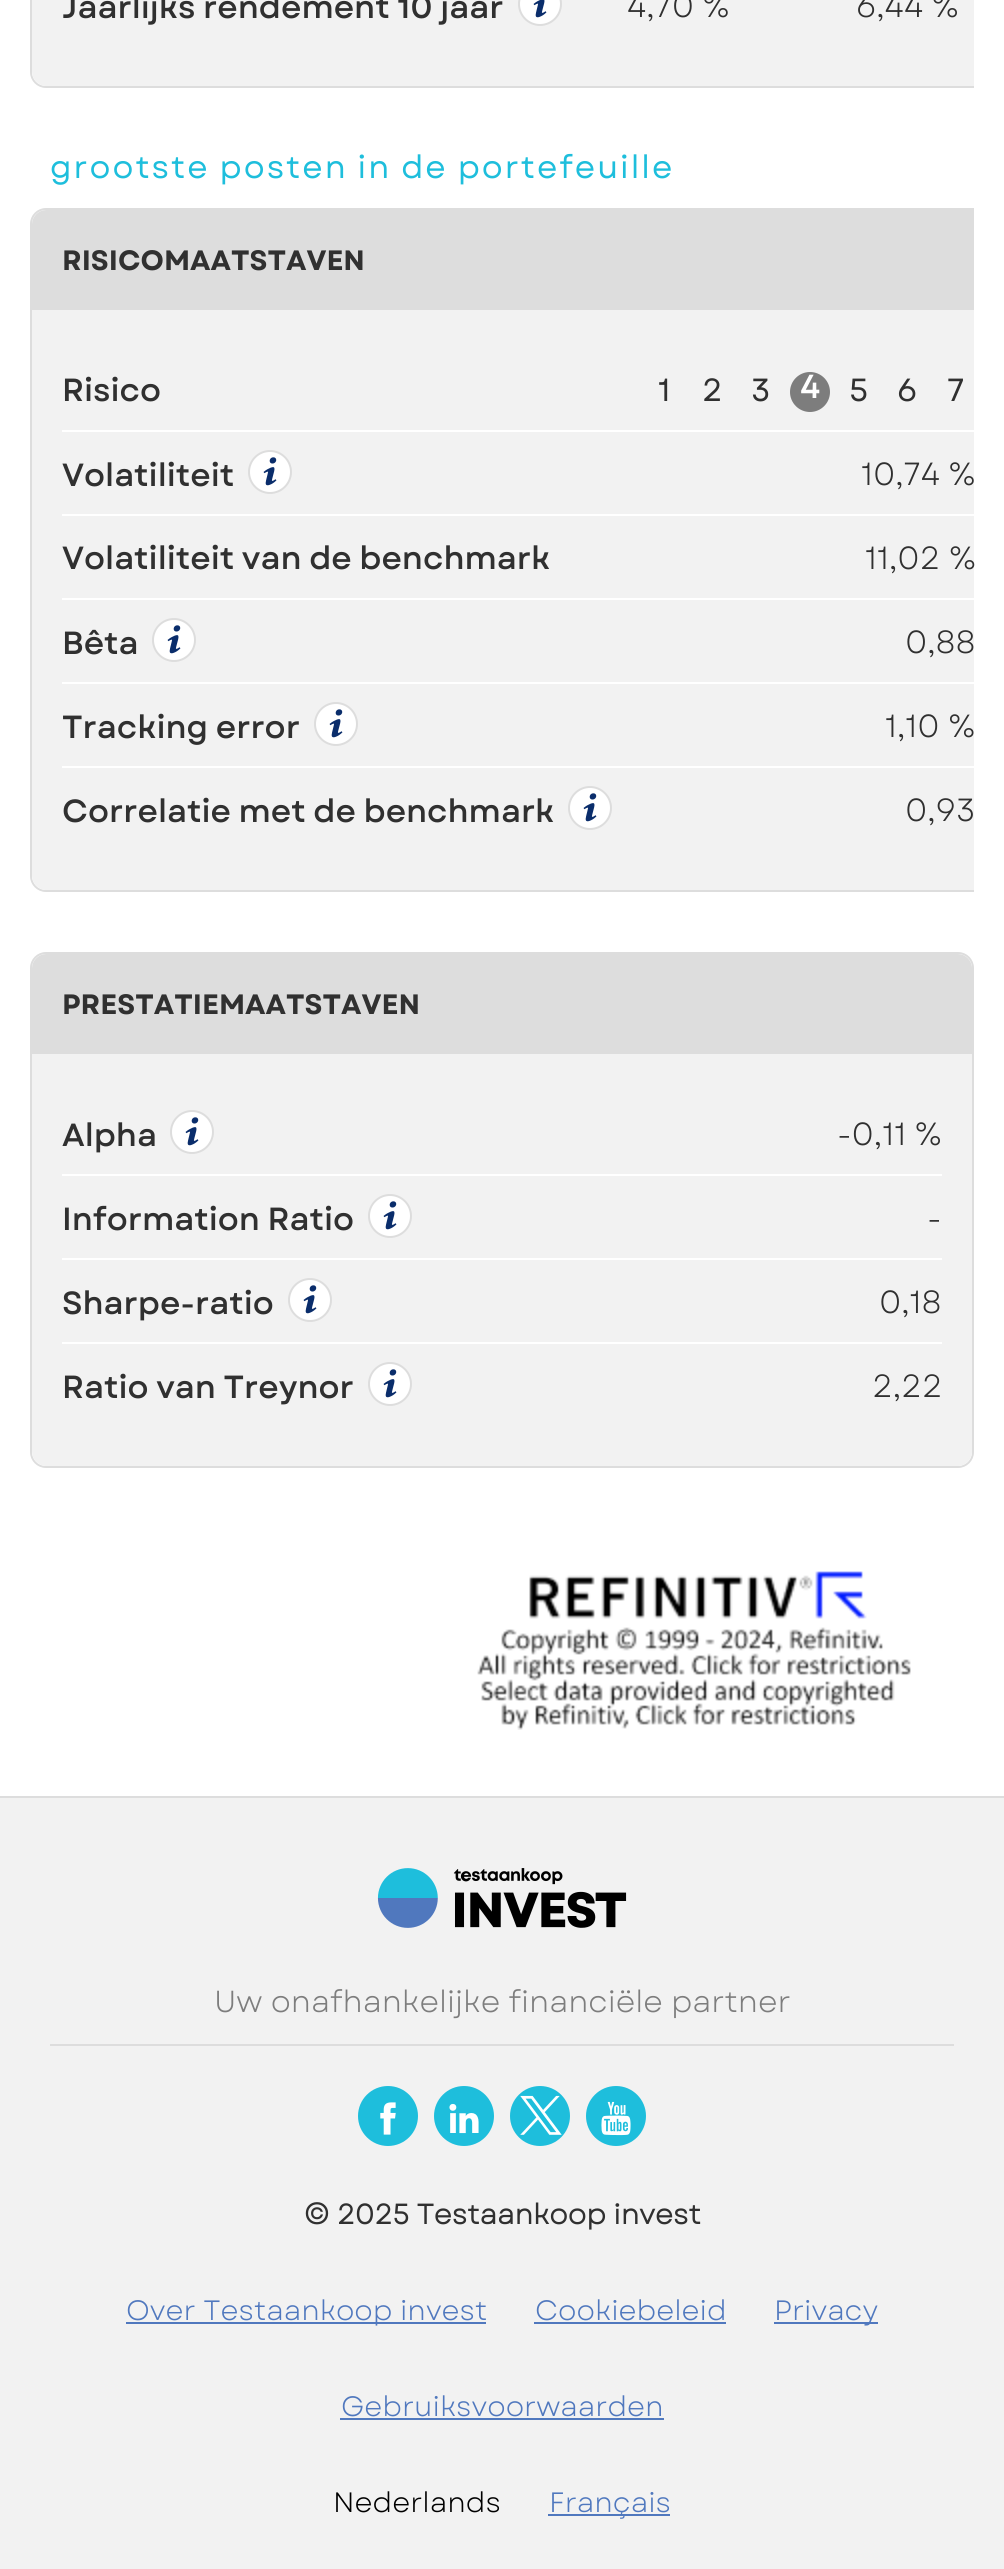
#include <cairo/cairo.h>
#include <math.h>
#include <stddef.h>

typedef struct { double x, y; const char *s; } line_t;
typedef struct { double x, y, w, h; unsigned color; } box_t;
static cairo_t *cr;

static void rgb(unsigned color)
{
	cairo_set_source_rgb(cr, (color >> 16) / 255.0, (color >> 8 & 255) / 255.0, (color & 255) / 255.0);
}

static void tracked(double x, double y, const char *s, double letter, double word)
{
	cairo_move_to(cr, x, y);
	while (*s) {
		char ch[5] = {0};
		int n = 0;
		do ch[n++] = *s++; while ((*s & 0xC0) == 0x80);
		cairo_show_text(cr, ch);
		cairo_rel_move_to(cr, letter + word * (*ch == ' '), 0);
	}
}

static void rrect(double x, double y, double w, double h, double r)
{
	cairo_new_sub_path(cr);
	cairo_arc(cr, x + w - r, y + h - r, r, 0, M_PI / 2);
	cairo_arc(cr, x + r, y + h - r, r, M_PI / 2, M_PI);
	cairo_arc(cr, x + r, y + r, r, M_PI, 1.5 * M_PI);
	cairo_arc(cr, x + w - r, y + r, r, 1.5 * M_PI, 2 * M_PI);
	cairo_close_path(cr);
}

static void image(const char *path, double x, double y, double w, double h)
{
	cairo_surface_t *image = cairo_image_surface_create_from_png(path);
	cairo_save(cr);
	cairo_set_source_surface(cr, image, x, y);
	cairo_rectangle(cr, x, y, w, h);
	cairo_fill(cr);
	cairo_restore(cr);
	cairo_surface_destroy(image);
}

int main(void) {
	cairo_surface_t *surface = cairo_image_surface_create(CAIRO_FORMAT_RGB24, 1004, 2569);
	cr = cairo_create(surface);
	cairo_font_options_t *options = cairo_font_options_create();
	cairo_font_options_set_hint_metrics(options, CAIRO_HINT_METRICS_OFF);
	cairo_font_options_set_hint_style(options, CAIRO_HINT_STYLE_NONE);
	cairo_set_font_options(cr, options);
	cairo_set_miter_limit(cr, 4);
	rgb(0xffffff);
	cairo_paint(cr);
	cairo_save(cr);
	cairo_rectangle(cr, 30, 0, 944, 88);
	cairo_clip(cr);
	rrect(31, -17, 958, 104, 15);
	rgb(0xdddddd);
	cairo_stroke(cr);
	cairo_restore(cr);
	rgb(0xf2f2f2);
	cairo_new_path(cr);
	cairo_move_to(cr, 32, -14);
	cairo_line_to(cr, 974, -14);
	cairo_line_to(cr, 974, 86);
	cairo_line_to(cr, 46, 86);
	cairo_curve_to(cr, 38.5, 86, 32, 79.5, 32, 72);
	cairo_close_path(cr);
	cairo_fill(cr);
	rgb(0xffffff);
	cairo_arc(cr, 540, 4, 21, 0, 2 * M_PI);
	cairo_fill_preserve(cr);
	rgb(0xdddddd);
	cairo_stroke(cr);
	image("img/1.png", 533, 0, 14, 18);
	cairo_save(cr);
	cairo_rectangle(cr, 30, 208, 944, 684);
	cairo_clip(cr);
	rrect(31, 209, 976, 682, 15);
	cairo_stroke(cr);
	cairo_restore(cr);
	cairo_new_path(cr);
	cairo_move_to(cr, 46, 210);
	cairo_line_to(cr, 642, 210);
	cairo_line_to(cr, 642, 310);
	cairo_line_to(cr, 32, 310);
	cairo_line_to(cr, 32, 224);
	cairo_curve_to(cr, 32, 216.5, 38.5, 210, 46, 210);
	cairo_close_path(cr);
	cairo_fill(cr);
	cairo_rectangle(cr, 642, 210, 332, 100);
	cairo_fill(cr);
	rgb(0xf2f2f2);
	cairo_new_path(cr);
	cairo_move_to(cr, 32, 310);
	cairo_line_to(cr, 974, 310);
	cairo_line_to(cr, 974, 890);
	cairo_line_to(cr, 46, 890);
	cairo_curve_to(cr, 38.5, 890, 32, 883.5, 32, 876);
	cairo_close_path(cr);
	cairo_fill(cr);
	rgb(0xffffff);
	cairo_rectangle(cr, 62, 430, 912, 2);
	cairo_fill(cr);
	rgb(0x7d7d7d);
	cairo_arc(cr, 810, 392, 20, 0, 2 * M_PI);
	cairo_fill(cr);
	rgb(0xffffff);
	cairo_arc(cr, 270, 472, 21, 0, 2 * M_PI);
	cairo_fill_preserve(cr);
	rgb(0xdddddd);
	cairo_stroke(cr);
	image("img/2.png", 263, 457, 14, 29);
	rgb(0xffffff);
	cairo_rectangle(cr, 62, 514, 912, 2);
	cairo_fill(cr);
	cairo_rectangle(cr, 62, 598, 912, 2);
	cairo_fill(cr);
	cairo_arc(cr, 174, 640, 21, 0, 2 * M_PI);
	cairo_fill_preserve(cr);
	rgb(0xdddddd);
	cairo_stroke(cr);
	image("img/2.png", 167, 625, 14, 29);
	rgb(0xffffff);
	cairo_rectangle(cr, 62, 682, 912, 2);
	cairo_fill(cr);
	cairo_arc(cr, 336, 724, 21, 0, 2 * M_PI);
	cairo_fill_preserve(cr);
	rgb(0xdddddd);
	cairo_stroke(cr);
	image("img/2.png", 329, 709, 14, 29);
	rgb(0xffffff);
	cairo_rectangle(cr, 62, 766, 912, 2);
	cairo_fill(cr);
	cairo_arc(cr, 590, 808, 21, 0, 2 * M_PI);
	cairo_fill_preserve(cr);
	rgb(0xdddddd);
	cairo_stroke(cr);
	image("img/2.png", 583, 793, 14, 29);
	rrect(31, 953, 942, 514, 15);
	cairo_stroke(cr);
	cairo_new_path(cr);
	cairo_move_to(cr, 46, 954);
	cairo_line_to(cr, 736, 954);
	cairo_line_to(cr, 736, 1054);
	cairo_line_to(cr, 32, 1054);
	cairo_line_to(cr, 32, 968);
	cairo_curve_to(cr, 32, 960.5, 38.5, 954, 46, 954);
	cairo_close_path(cr);
	cairo_fill(cr);
	cairo_new_path(cr);
	cairo_move_to(cr, 736, 954);
	cairo_line_to(cr, 958, 954);
	cairo_curve_to(cr, 965.5, 954, 972, 960.5, 972, 968);
	cairo_line_to(cr, 972, 1054);
	cairo_line_to(cr, 736, 1054);
	cairo_close_path(cr);
	cairo_fill(cr);
	rgb(0xf2f2f2);
	cairo_new_path(cr);
	cairo_move_to(cr, 32, 1054);
	cairo_line_to(cr, 972, 1054);
	cairo_line_to(cr, 972, 1452);
	cairo_curve_to(cr, 972, 1459.5, 965.5, 1466, 958, 1466);
	cairo_line_to(cr, 46, 1466);
	cairo_curve_to(cr, 38.5, 1466, 32, 1459.5, 32, 1452);
	cairo_close_path(cr);
	cairo_fill(cr);
	rgb(0xffffff);
	cairo_arc(cr, 192, 1132, 21, 0, 2 * M_PI);
	cairo_fill_preserve(cr);
	rgb(0xdddddd);
	cairo_stroke(cr);
	image("img/2.png", 185, 1117, 14, 29);
	rgb(0xffffff);
	cairo_rectangle(cr, 62, 1174, 880, 2);
	cairo_fill(cr);
	cairo_arc(cr, 390, 1216, 21, 0, 2 * M_PI);
	cairo_fill_preserve(cr);
	rgb(0xdddddd);
	cairo_stroke(cr);
	image("img/2.png", 383, 1201, 14, 29);
	rgb(0xffffff);
	cairo_rectangle(cr, 62, 1258, 880, 2);
	cairo_fill(cr);
	cairo_arc(cr, 310, 1300, 21, 0, 2 * M_PI);
	cairo_fill_preserve(cr);
	rgb(0xdddddd);
	cairo_stroke(cr);
	image("img/2.png", 303, 1285, 14, 29);
	rgb(0xffffff);
	cairo_rectangle(cr, 62, 1342, 880, 2);
	cairo_fill(cr);
	cairo_arc(cr, 390, 1384, 21, 0, 2 * M_PI);
	cairo_fill_preserve(cr);
	rgb(0xdddddd);
	cairo_stroke(cr);
	image("img/2.png", 383, 1369, 14, 29);
	image("img/3.png", 477, 1571, 434, 159);
	rgb(0xf2f2f2);
	cairo_rectangle(cr, 0, 1798, 1004, 771);
	cairo_fill(cr);
	rgb(0xdddddd);
	cairo_rectangle(cr, 0, 1796, 1004, 2);
	cairo_fill(cr);
	image("img/4.png", 377, 1868, 250, 60);
	cairo_rectangle(cr, 50, 2044, 904, 2);
	cairo_fill(cr);
	rgb(0x1ebedc);
	cairo_arc(cr, 388, 2116, 30, 0, 2 * M_PI);
	cairo_fill(cr);
	image("img/5.png", 380, 2102, 16, 33);
	cairo_arc(cr, 464, 2116, 30, 0, 2 * M_PI);
	cairo_fill(cr);
	image("img/6.png", 449, 2103, 30, 31);
	cairo_arc(cr, 540, 2116, 30, 0, 2 * M_PI);
	cairo_fill(cr);
	image("img/7.png", 520, 2095, 42, 40);
	cairo_arc(cr, 616, 2116, 30, 0, 2 * M_PI);
	cairo_fill(cr);
	image("img/8.png", 601, 2101, 30, 35);
	{
		static const box_t items[] = {
			{126, 2322, 360, 2, 0x5078be},
			{534, 2322, 192, 2, 0x5078be},
			{774, 2322, 104, 2, 0x5078be},
			{340, 2418, 324, 2, 0x5078be},
			{548, 2514, 122, 2, 0x5078be},
		};
		for (size_t i = 0; i < sizeof items / sizeof *items; i++) {
			rgb(items[i].color);
			cairo_rectangle(cr, items[i].x, items[i].y, items[i].w, items[i].h);
			cairo_fill(cr);
		}
	}
	cairo_select_font_face(cr, "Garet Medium", CAIRO_FONT_SLANT_NORMAL, CAIRO_FONT_WEIGHT_NORMAL);
	cairo_set_font_size(cr, 32);
	rgb(0x303030);
	cairo_move_to(cr, 62, 18);
	cairo_show_text(cr, "Jaarlijks rendement 10 jaar");
	cairo_select_font_face(cr, "Garet", CAIRO_FONT_SLANT_NORMAL, CAIRO_FONT_WEIGHT_NORMAL);
	cairo_move_to(cr, 627, 17);
	cairo_show_text(cr, "4,70 %");
	cairo_move_to(cr, 856, 17);
	cairo_show_text(cr, "6,44 %");
	cairo_select_font_face(cr, "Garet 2", CAIRO_FONT_SLANT_NORMAL, CAIRO_FONT_WEIGHT_NORMAL);
	rgb(0x1ebedc);
	tracked(50, 178, "grootste posten in de portefeuille", 2, 0);
	cairo_select_font_face(cr, "Garet 2", CAIRO_FONT_SLANT_NORMAL, CAIRO_FONT_WEIGHT_BOLD);
	cairo_set_font_size(cr, 28);
	rgb(0x303030);
	cairo_move_to(cr, 62, 270);
	cairo_show_text(cr, "RISICOMAATSTAVEN");
	cairo_select_font_face(cr, "Garet Medium", CAIRO_FONT_SLANT_NORMAL, CAIRO_FONT_WEIGHT_NORMAL);
	cairo_set_font_size(cr, 32);
	cairo_move_to(cr, 62, 401);
	cairo_show_text(cr, "Risico");
	cairo_select_font_face(cr, "Garet 2", CAIRO_FONT_SLANT_NORMAL, CAIRO_FONT_WEIGHT_NORMAL);
	{
		static const line_t items[] = {
			{658, 401, "1"},
			{702, 401, "2"},
			{751, 401, "3"},
		};
		for (size_t i = 0; i < sizeof items / sizeof *items; i++) {
			cairo_move_to(cr, items[i].x, items[i].y);
			cairo_show_text(cr, items[i].s);
		}
	}
	cairo_select_font_face(cr, "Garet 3", CAIRO_FONT_SLANT_NORMAL, CAIRO_FONT_WEIGHT_BOLD);
	rgb(0xffffff);
	cairo_move_to(cr, 800, 398);
	cairo_show_text(cr, "4");
	cairo_select_font_face(cr, "Garet 2", CAIRO_FONT_SLANT_NORMAL, CAIRO_FONT_WEIGHT_NORMAL);
	rgb(0x303030);
	{
		static const line_t items[] = {
			{849, 401, "5"},
			{897, 401, "6"},
			{947, 401, "7"},
		};
		for (size_t i = 0; i < sizeof items / sizeof *items; i++) {
			cairo_move_to(cr, items[i].x, items[i].y);
			cairo_show_text(cr, items[i].s);
		}
	}
	cairo_select_font_face(cr, "Garet Medium", CAIRO_FONT_SLANT_NORMAL, CAIRO_FONT_WEIGHT_NORMAL);
	cairo_move_to(cr, 62, 486);
	cairo_show_text(cr, "Volatiliteit");
	cairo_select_font_face(cr, "Garet", CAIRO_FONT_SLANT_NORMAL, CAIRO_FONT_WEIGHT_NORMAL);
	cairo_move_to(cr, 861, 485);
	cairo_show_text(cr, "10,74 %");
	cairo_select_font_face(cr, "Garet Medium", CAIRO_FONT_SLANT_NORMAL, CAIRO_FONT_WEIGHT_NORMAL);
	cairo_move_to(cr, 62, 569);
	cairo_show_text(cr, "Volatiliteit van de benchmark");
	cairo_select_font_face(cr, "Garet", CAIRO_FONT_SLANT_NORMAL, CAIRO_FONT_WEIGHT_NORMAL);
	cairo_move_to(cr, 865, 569);
	cairo_show_text(cr, "11,02 %");
	cairo_select_font_face(cr, "Garet Medium", CAIRO_FONT_SLANT_NORMAL, CAIRO_FONT_WEIGHT_NORMAL);
	cairo_move_to(cr, 62, 654);
	cairo_show_text(cr, "Bêta");
	cairo_select_font_face(cr, "Garet", CAIRO_FONT_SLANT_NORMAL, CAIRO_FONT_WEIGHT_NORMAL);
	cairo_move_to(cr, 905, 653);
	cairo_show_text(cr, "0,88");
	cairo_select_font_face(cr, "Garet Medium", CAIRO_FONT_SLANT_NORMAL, CAIRO_FONT_WEIGHT_NORMAL);
	cairo_move_to(cr, 62, 738);
	cairo_show_text(cr, "Tracking error");
	cairo_select_font_face(cr, "Garet", CAIRO_FONT_SLANT_NORMAL, CAIRO_FONT_WEIGHT_NORMAL);
	cairo_move_to(cr, 885, 737);
	cairo_show_text(cr, "1,10 %");
	cairo_select_font_face(cr, "Garet Medium", CAIRO_FONT_SLANT_NORMAL, CAIRO_FONT_WEIGHT_NORMAL);
	cairo_move_to(cr, 62, 822);
	cairo_show_text(cr, "Correlatie met de benchmark");
	cairo_select_font_face(cr, "Garet", CAIRO_FONT_SLANT_NORMAL, CAIRO_FONT_WEIGHT_NORMAL);
	cairo_move_to(cr, 905, 821);
	cairo_show_text(cr, "0,93");
	cairo_select_font_face(cr, "Garet 2", CAIRO_FONT_SLANT_NORMAL, CAIRO_FONT_WEIGHT_BOLD);
	cairo_set_font_size(cr, 28);
	cairo_move_to(cr, 62, 1014);
	cairo_show_text(cr, "PRESTATIEMAATSTAVEN");
	cairo_select_font_face(cr, "Garet Medium", CAIRO_FONT_SLANT_NORMAL, CAIRO_FONT_WEIGHT_NORMAL);
	cairo_set_font_size(cr, 32);
	cairo_move_to(cr, 62, 1146);
	cairo_show_text(cr, "Alpha");
	cairo_select_font_face(cr, "Garet", CAIRO_FONT_SLANT_NORMAL, CAIRO_FONT_WEIGHT_NORMAL);
	cairo_move_to(cr, 837, 1145);
	cairo_show_text(cr, "-0,11 %");
	cairo_select_font_face(cr, "Garet Medium", CAIRO_FONT_SLANT_NORMAL, CAIRO_FONT_WEIGHT_NORMAL);
	cairo_move_to(cr, 62, 1230);
	cairo_show_text(cr, "Information Ratio");
	cairo_select_font_face(cr, "Garet", CAIRO_FONT_SLANT_NORMAL, CAIRO_FONT_WEIGHT_NORMAL);
	cairo_move_to(cr, 927, 1229);
	cairo_show_text(cr, "-");
	cairo_select_font_face(cr, "Garet Medium", CAIRO_FONT_SLANT_NORMAL, CAIRO_FONT_WEIGHT_NORMAL);
	cairo_move_to(cr, 62, 1314);
	cairo_show_text(cr, "Sharpe-ratio");
	cairo_select_font_face(cr, "Garet", CAIRO_FONT_SLANT_NORMAL, CAIRO_FONT_WEIGHT_NORMAL);
	cairo_move_to(cr, 879, 1313);
	cairo_show_text(cr, "0,18");
	cairo_select_font_face(cr, "Garet Medium", CAIRO_FONT_SLANT_NORMAL, CAIRO_FONT_WEIGHT_NORMAL);
	cairo_move_to(cr, 62, 1398);
	cairo_show_text(cr, "Ratio van Treynor");
	cairo_select_font_face(cr, "Garet", CAIRO_FONT_SLANT_NORMAL, CAIRO_FONT_WEIGHT_NORMAL);
	cairo_move_to(cr, 872, 1397);
	cairo_show_text(cr, "2,22");
	cairo_set_font_size(cr, 30.4);
	rgb(0x7d7d7d);
	cairo_move_to(cr, 214, 2012);
	cairo_show_text(cr, "Uw onafhankelijke financiële partner");
	cairo_select_font_face(cr, "Garet", CAIRO_FONT_SLANT_NORMAL, CAIRO_FONT_WEIGHT_BOLD);
	cairo_set_font_size(cr, 28);
	rgb(0x303030);
	cairo_move_to(cr, 304, 2224);
	cairo_show_text(cr, "© 2025 Testaankoop invest");
	cairo_select_font_face(cr, "Garet", CAIRO_FONT_SLANT_NORMAL, CAIRO_FONT_WEIGHT_NORMAL);
	rgb(0x5078be);
	{
		static const line_t items[] = {
			{126, 2320, "Over Testaankoop invest"},
			{535, 2320, "Cookiebeleid"},
			{774, 2320, "Privacy"},
			{341, 2416, "Gebruiksvoorwaarden"},
		};
		for (size_t i = 0; i < sizeof items / sizeof *items; i++) {
			cairo_move_to(cr, items[i].x, items[i].y);
			cairo_show_text(cr, items[i].s);
		}
	}
	rgb(0x000000);
	cairo_move_to(cr, 333, 2512);
	cairo_show_text(cr, "Nederlands");
	rgb(0x5078be);
	cairo_move_to(cr, 549, 2512);
	cairo_show_text(cr, "Français");
	cairo_surface_write_to_png(surface, "page.png");
	cairo_font_options_destroy(options);
	cairo_destroy(cr);
	cairo_surface_destroy(surface);
	return 0;
}
